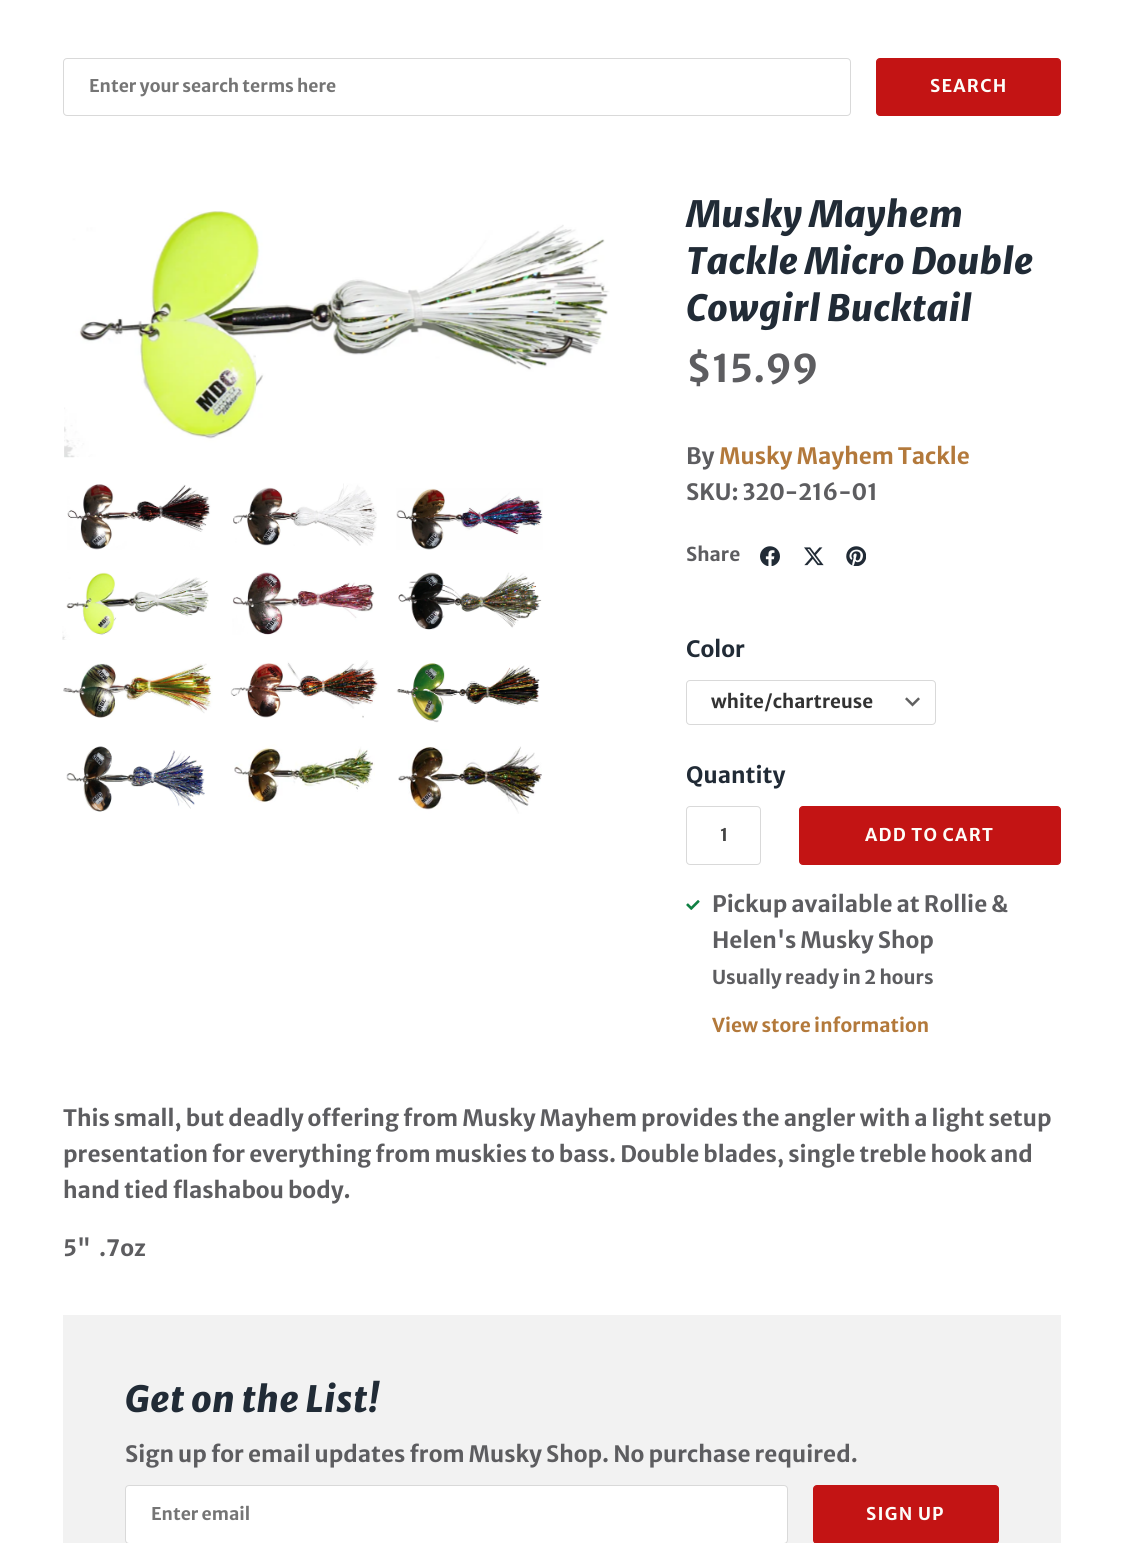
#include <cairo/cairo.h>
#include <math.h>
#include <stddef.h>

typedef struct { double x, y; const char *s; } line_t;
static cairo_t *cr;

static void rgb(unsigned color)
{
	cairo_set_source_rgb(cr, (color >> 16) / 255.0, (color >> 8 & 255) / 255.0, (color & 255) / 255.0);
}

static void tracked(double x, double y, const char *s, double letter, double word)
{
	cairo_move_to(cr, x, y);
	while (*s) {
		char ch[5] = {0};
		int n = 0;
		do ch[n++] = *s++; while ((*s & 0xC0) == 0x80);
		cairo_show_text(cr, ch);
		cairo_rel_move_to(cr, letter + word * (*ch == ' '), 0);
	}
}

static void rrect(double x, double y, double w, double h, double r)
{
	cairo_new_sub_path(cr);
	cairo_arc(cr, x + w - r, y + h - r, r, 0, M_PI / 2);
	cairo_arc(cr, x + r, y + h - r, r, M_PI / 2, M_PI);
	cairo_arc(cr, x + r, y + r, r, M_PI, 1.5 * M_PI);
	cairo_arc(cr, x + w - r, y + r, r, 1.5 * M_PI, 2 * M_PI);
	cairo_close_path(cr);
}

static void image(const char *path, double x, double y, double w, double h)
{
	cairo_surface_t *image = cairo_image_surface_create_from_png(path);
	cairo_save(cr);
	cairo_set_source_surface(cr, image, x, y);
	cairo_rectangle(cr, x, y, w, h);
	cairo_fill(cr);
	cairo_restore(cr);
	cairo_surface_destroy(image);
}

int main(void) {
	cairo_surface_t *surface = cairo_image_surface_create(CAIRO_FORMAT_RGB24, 1123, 1543);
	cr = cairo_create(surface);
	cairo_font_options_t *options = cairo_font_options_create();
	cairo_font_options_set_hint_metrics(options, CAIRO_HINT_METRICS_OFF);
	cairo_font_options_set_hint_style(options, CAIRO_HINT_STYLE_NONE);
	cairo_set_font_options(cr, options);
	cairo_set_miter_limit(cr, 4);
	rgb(0xffffff);
	cairo_paint(cr);
	rrect(63.5, 58.5, 787, 57, 3.5);
	rgb(0xd9d9d9);
	cairo_set_line_width(cr, 1);
	cairo_stroke(cr);
	rgb(0xc31414);
	rrect(876.5, 58.5, 184, 57, 3.5);
	cairo_fill_preserve(cr);
	cairo_stroke(cr);
	image("img/1.png", 64, 211, 546, 247);
	image("img/2.png", 67, 484, 144, 66);
	image("img/3.png", 233, 483, 144, 63);
	image("img/4.png", 396, 488, 147, 62);
	image("img/5.png", 62, 572, 147, 68);
	image("img/6.png", 232, 572, 143, 63);
	image("img/7.png", 398, 572, 144, 58);
	image("img/8.png", 63, 663, 150, 55);
	image("img/9.png", 230, 660, 149, 58);
	image("img/10.png", 396, 663, 144, 60);
	image("img/11.png", 66, 746, 139, 66);
	image("img/12.png", 234, 744, 141, 59);
	image("img/13.png", 398, 746, 144, 68);
	image("img/14.png", 760, 546, 20, 20);
	image("img/15.png", 804, 547, 20, 19);
	image("img/16.png", 846, 546, 20, 20);
	image("img/17.png", 905, 697, 15, 10);
	rrect(686.5, 680.5, 249, 44, 3.5);
	rgb(0xd9d9d9);
	cairo_stroke(cr);
	rrect(686.5, 806.5, 74, 58, 3.5);
	cairo_stroke(cr);
	rgb(0xc31414);
	rrect(799.5, 806.5, 261, 58, 3.5);
	cairo_fill_preserve(cr);
	cairo_stroke(cr);
	image("img/18.png", 686, 900, 14, 10);
	rgb(0xf2f2f2);
	cairo_rectangle(cr, 63, 1315, 998, 228);
	cairo_fill(cr);
	rgb(0xffffff);
	rrect(125, 1485, 663, 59, 4);
	cairo_fill(cr);
	rrect(125.5, 1485.5, 662, 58, 3.5);
	cairo_set_source_rgba(cr, 0, 0, 0, 0.15);
	cairo_stroke(cr);
	rgb(0xc31414);
	rrect(813.5, 1485.5, 185, 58, 3.5);
	cairo_fill_preserve(cr);
	cairo_stroke(cr);
	cairo_select_font_face(cr, "Merriweather Sans", CAIRO_FONT_SLANT_NORMAL, CAIRO_FONT_WEIGHT_BOLD);
	cairo_set_font_size(cr, 17.5);
	rgb(0x757575);
	cairo_move_to(cr, 89, 92);
	cairo_show_text(cr, "Enter your search terms here");
	rgb(0xfdfdf9);
	tracked(930, 92, "SEARCH", 1.25, 0);
	cairo_select_font_face(cr, "Merriweather Sans ExtraBold", CAIRO_FONT_SLANT_ITALIC, CAIRO_FONT_WEIGHT_NORMAL);
	cairo_set_font_size(cr, 36);
	rgb(0x212b36);
	{
		static const line_t items[] = {
			{686, 227, "Musky Mayhem"},
			{686, 274, "Tackle Micro Double"},
			{686, 321, "Cowgirl Bucktail"},
		};
		for (size_t i = 0; i < sizeof items / sizeof *items; i++) {
			cairo_move_to(cr, items[i].x, items[i].y);
			cairo_show_text(cr, items[i].s);
		}
	}
	cairo_select_font_face(cr, "Merriweather Sans", CAIRO_FONT_SLANT_NORMAL, CAIRO_FONT_WEIGHT_BOLD);
	cairo_set_font_size(cr, 38);
	rgb(0x5d5d60);
	cairo_move_to(cr, 686, 382);
	cairo_show_text(cr, "$15.99");
	cairo_set_font_size(cr, 22.5);
	cairo_move_to(cr, 686, 464);
	cairo_show_text(cr, "By");
	rgb(0xb3793b);
	cairo_move_to(cr, 719, 464);
	cairo_show_text(cr, "Musky Mayhem Tackle");
	rgb(0x5d5d60);
	cairo_move_to(cr, 686, 500);
	cairo_show_text(cr, "SKU: 320-216-01");
	cairo_set_font_size(cr, 19.1);
	cairo_move_to(cr, 686, 561);
	cairo_show_text(cr, "Share");
	cairo_set_font_size(cr, 22.5);
	rgb(0x212b36);
	cairo_move_to(cr, 686, 657);
	cairo_show_text(cr, "Color");
	cairo_set_font_size(cr, 18.75);
	rgb(0x333333);
	cairo_move_to(cr, 711, 708);
	cairo_show_text(cr, "white/chartreuse");
	cairo_set_font_size(cr, 22.5);
	rgb(0x212b36);
	cairo_move_to(cr, 686, 783);
	cairo_show_text(cr, "Quantity");
	cairo_set_font_size(cr, 17.5);
	rgb(0x444444);
	cairo_move_to(cr, 720, 841);
	cairo_show_text(cr, "1");
	rgb(0xfdfdf9);
	tracked(865, 841, "ADD TO CART", 1.25, 0);
	cairo_set_font_size(cr, 22.5);
	rgb(0x5d5d60);
	cairo_move_to(cr, 712, 912);
	cairo_show_text(cr, "Pickup available at Rollie &");
	cairo_move_to(cr, 712, 948);
	cairo_show_text(cr, "Helen's Musky Shop");
	cairo_set_font_size(cr, 19.1);
	cairo_move_to(cr, 712, 984);
	cairo_show_text(cr, "Usually ready in 2 hours");
	rgb(0xb3793b);
	cairo_move_to(cr, 712, 1032);
	cairo_show_text(cr, "View store information");
	cairo_set_font_size(cr, 22.5);
	rgb(0x5d5d60);
	{
		static const line_t items[] = {
			{63, 1126, "This small, but deadly offering from Musky Mayhem provides the angler with a light setup"},
			{63, 1162, "presentation for everything from muskies to bass. Double blades, single treble hook and"},
			{63, 1198, "hand tied flashabou body."},
			{63, 1256, "5\"  .7oz"},
		};
		for (size_t i = 0; i < sizeof items / sizeof *items; i++) {
			cairo_move_to(cr, items[i].x, items[i].y);
			cairo_show_text(cr, items[i].s);
		}
	}
	cairo_select_font_face(cr, "Merriweather Sans ExtraBold", CAIRO_FONT_SLANT_ITALIC, CAIRO_FONT_WEIGHT_NORMAL);
	cairo_set_font_size(cr, 36);
	rgb(0x212b36);
	cairo_move_to(cr, 125, 1412);
	cairo_show_text(cr, "Get on the List!");
	cairo_select_font_face(cr, "Merriweather Sans", CAIRO_FONT_SLANT_NORMAL, CAIRO_FONT_WEIGHT_BOLD);
	cairo_set_font_size(cr, 22.5);
	rgb(0x5d5d60);
	cairo_move_to(cr, 125, 1462);
	cairo_show_text(cr, "Sign up for email updates from Musky Shop. No purchase required.");
	cairo_set_font_size(cr, 17.5);
	rgb(0x757575);
	cairo_move_to(cr, 151, 1520);
	cairo_show_text(cr, "Enter email");
	rgb(0xfdfdf9);
	tracked(866, 1520, "SIGN UP", 1.25, 0);
	cairo_surface_write_to_png(surface, "page.png");
	cairo_font_options_destroy(options);
	cairo_destroy(cr);
	cairo_surface_destroy(surface);
	return 0;
}
